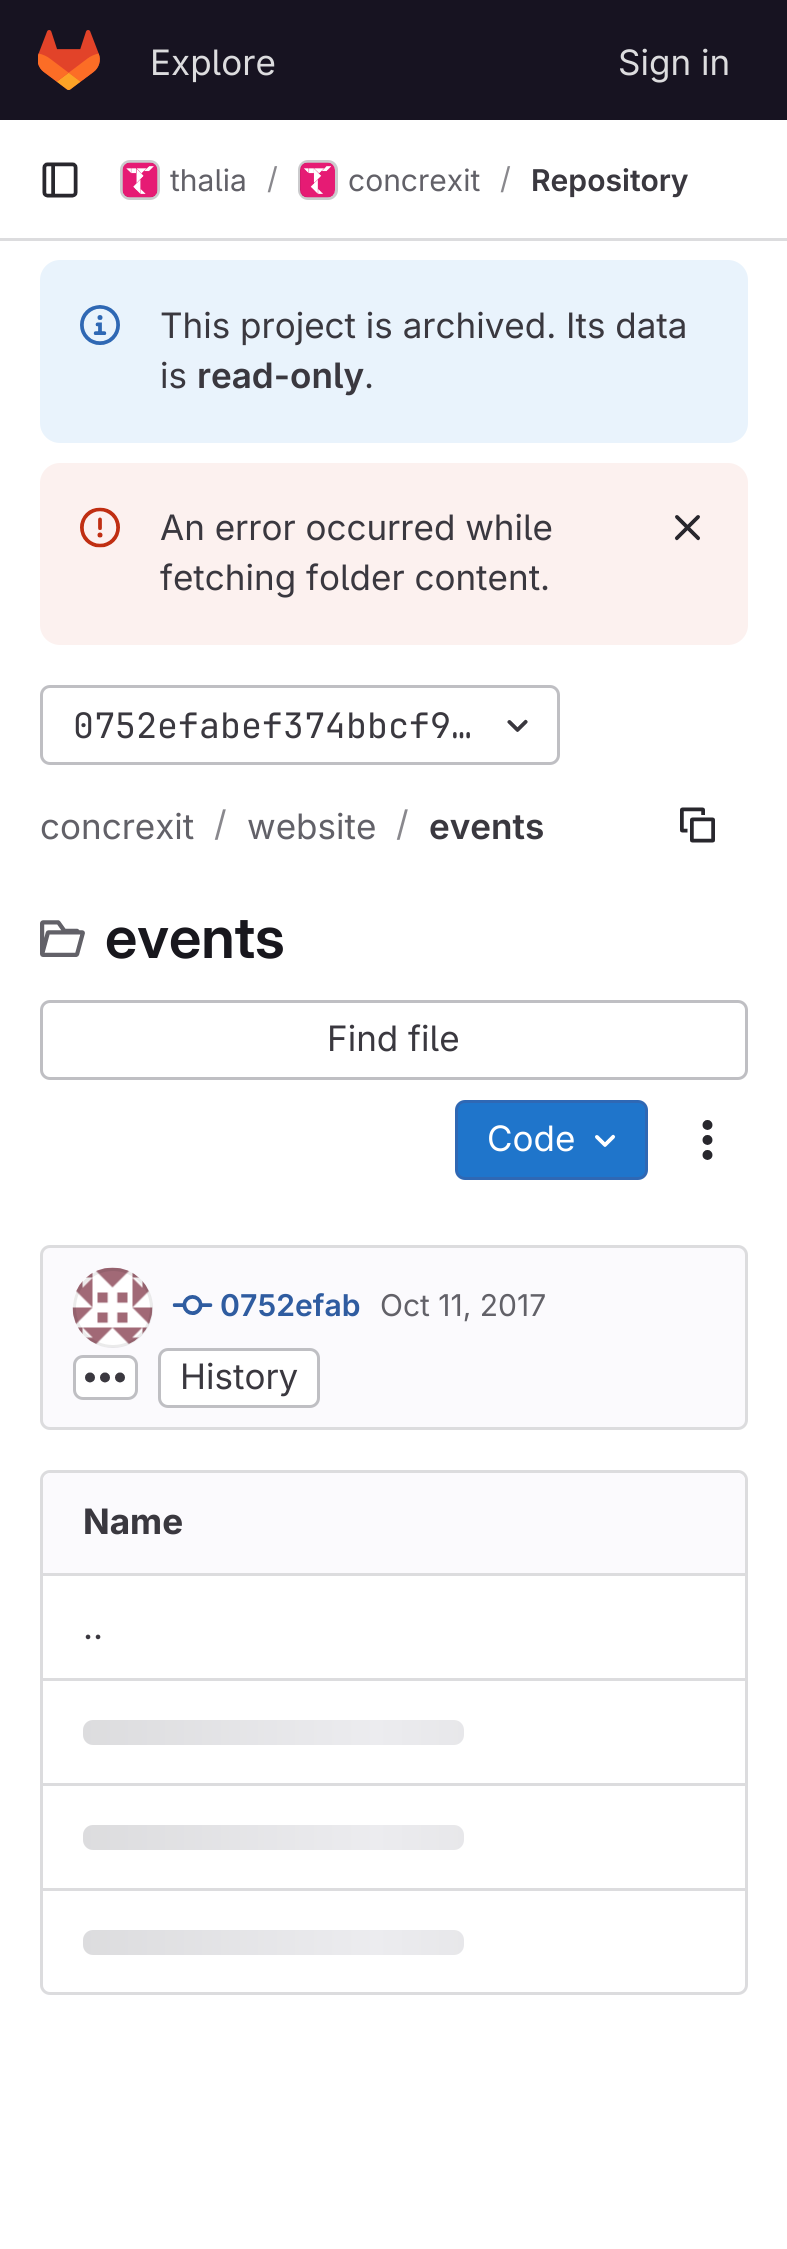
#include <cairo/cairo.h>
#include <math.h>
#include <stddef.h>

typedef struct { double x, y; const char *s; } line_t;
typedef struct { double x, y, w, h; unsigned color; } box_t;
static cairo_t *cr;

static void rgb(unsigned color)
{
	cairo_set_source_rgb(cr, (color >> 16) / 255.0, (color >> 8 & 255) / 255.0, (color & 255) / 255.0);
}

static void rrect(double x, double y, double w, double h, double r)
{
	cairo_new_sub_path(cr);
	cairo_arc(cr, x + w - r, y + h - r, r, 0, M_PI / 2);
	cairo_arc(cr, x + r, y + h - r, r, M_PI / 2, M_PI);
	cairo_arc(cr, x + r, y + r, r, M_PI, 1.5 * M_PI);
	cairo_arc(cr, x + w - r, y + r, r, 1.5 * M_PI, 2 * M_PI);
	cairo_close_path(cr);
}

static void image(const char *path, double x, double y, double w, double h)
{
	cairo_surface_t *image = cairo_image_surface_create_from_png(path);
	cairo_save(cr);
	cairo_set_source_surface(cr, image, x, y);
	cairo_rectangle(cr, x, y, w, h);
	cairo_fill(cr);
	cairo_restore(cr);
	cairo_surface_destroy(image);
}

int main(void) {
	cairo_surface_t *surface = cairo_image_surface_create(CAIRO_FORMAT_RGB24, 787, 2249);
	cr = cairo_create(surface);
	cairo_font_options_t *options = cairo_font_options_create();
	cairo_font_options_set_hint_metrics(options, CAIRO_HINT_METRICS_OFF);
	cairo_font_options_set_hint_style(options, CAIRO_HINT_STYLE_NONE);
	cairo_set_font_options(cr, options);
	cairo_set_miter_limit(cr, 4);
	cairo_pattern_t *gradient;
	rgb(0xffffff);
	cairo_paint(cr);
	rgb(0x171321);
	cairo_rectangle(cr, 0, 0, 787, 120);
	cairo_fill(cr);
	image("img/1.png", 38, 30, 62, 60);
	rgb(0xdcdcde);
	cairo_rectangle(cr, 0, 238, 787, 3);
	cairo_fill(cr);
	image("img/2.png", 42, 162, 36, 36);
	rrect(121.5, 161.5, 37, 37, 8.5);
	cairo_set_line_width(cr, 3);
	cairo_stroke(cr);
	image("img/3.png", 122, 162, 36, 36);
	rrect(121.5, 161.5, 37, 37, 8.5);
	cairo_set_source_rgba(cr, 0.02, 0.02, 0.024, 0.08);
	cairo_stroke(cr);
	rrect(299.5, 161.5, 37, 37, 8.5);
	rgb(0xdcdcde);
	cairo_stroke(cr);
	image("img/4.png", 300, 162, 35, 36);
	rrect(299.5, 161.5, 37, 37, 8.5);
	cairo_set_source_rgba(cr, 0.02, 0.02, 0.024, 0.08);
	cairo_stroke(cr);
	rgb(0xe9f3fc);
	rrect(40, 260, 708, 183, 20);
	cairo_fill(cr);
	image("img/5.png", 80, 305, 40, 40);
	rgb(0xfcf1ef);
	rrect(40, 463, 708, 182, 20);
	cairo_fill(cr);
	image("img/6.png", 80, 507, 40, 41);
	image("img/7.png", 674, 515, 26, 26);
	rrect(41.5, 686.5, 517, 77, 8.5);
	rgb(0xbfbfc3);
	cairo_stroke(cr);
	image("img/8.png", 507, 719, 21, 13);
	image("img/9.png", 680, 807, 35, 36);
	image("img/10.png", 40, 920, 45, 37);
	rrect(41.5, 1001.5, 705, 77, 8.5);
	cairo_stroke(cr);
	rgb(0x1f75cb);
	rrect(456.5, 1101.5, 190, 77, 8.5);
	cairo_fill_preserve(cr);
	rgb(0x2f68b4);
	cairo_stroke(cr);
	image("img/11.png", 595, 1134, 21, 13);
	image("img/12.png", 702, 1120, 11, 40);
	rgb(0xfbfafd);
	rrect(41.5, 1246.5, 705, 182, 8.5);
	cairo_fill_preserve(cr);
	rgb(0xdcdcde);
	cairo_stroke(cr);
	image("img/13.png", 72, 1267, 81, 80);
	cairo_arc(cr, 113, 1308, 38.5, 0, 2 * M_PI);
	cairo_set_source_rgba(cr, 0.02, 0.02, 0.024, 0.08);
	cairo_stroke(cr);
	image("img/14.png", 172, 1295, 41, 20);
	rgb(0xffffff);
	rrect(74.5, 1356.5, 62, 42, 8.5);
	cairo_fill_preserve(cr);
	rgb(0xbfbfc3);
	cairo_stroke(cr);
	image("img/15.png", 85, 1372, 40, 11);
	rgb(0xffffff);
	rrect(159.5, 1349.5, 159, 57, 8.5);
	cairo_fill_preserve(cr);
	rgb(0xbfbfc3);
	cairo_stroke(cr);
	rrect(41.5, 1471.5, 705, 522, 8.5);
	rgb(0xdcdcde);
	cairo_stroke(cr);
	rgb(0xfbfafd);
	cairo_new_path(cr);
	cairo_move_to(cr, 51, 1473);
	cairo_line_to(cr, 710, 1473);
	cairo_line_to(cr, 710, 1573);
	cairo_line_to(cr, 43, 1573);
	cairo_line_to(cr, 43, 1481);
	cairo_curve_to(cr, 43, 1476.5, 46.5, 1473, 51, 1473);
	cairo_close_path(cr);
	cairo_fill(cr);
	cairo_new_path(cr);
	cairo_move_to(cr, 710, 1473);
	cairo_line_to(cr, 737, 1473);
	cairo_curve_to(cr, 741.5, 1473, 745, 1476.5, 745, 1481);
	cairo_line_to(cr, 745, 1573);
	cairo_line_to(cr, 710, 1573);
	cairo_close_path(cr);
	cairo_fill(cr);
	{
		static const box_t items[] = {
			{43, 1678, 702, 3, 0xdcdcde},
			{43, 1573, 702, 3, 0xdcdcde},
			{43, 1783, 702, 3, 0xdcdcde},
		};
		for (size_t i = 0; i < sizeof items / sizeof *items; i++) {
			rgb(items[i].color);
			cairo_rectangle(cr, items[i].x, items[i].y, items[i].w, items[i].h);
			cairo_fill(cr);
		}
	}
	gradient = cairo_pattern_create_linear(83, 1720, 670, 1720);
	cairo_pattern_add_color_stop_rgba(gradient, 0, 0.863, 0.863, 0.871, 1);
	cairo_pattern_add_color_stop_rgba(gradient, 0.5, 0.925, 0.925, 0.937, 1);
	cairo_pattern_add_color_stop_rgba(gradient, 1, 0.863, 0.863, 0.871, 1);
	cairo_set_source(cr, gradient);
	cairo_pattern_destroy(gradient);
	rrect(83, 1720, 381, 25, 10);
	cairo_fill(cr);
	rgb(0xdcdcde);
	cairo_rectangle(cr, 43, 1888, 702, 3);
	cairo_fill(cr);
	gradient = cairo_pattern_create_linear(83, 1825, 670, 1825);
	cairo_pattern_add_color_stop_rgba(gradient, 0, 0.863, 0.863, 0.871, 1);
	cairo_pattern_add_color_stop_rgba(gradient, 0.5, 0.925, 0.925, 0.937, 1);
	cairo_pattern_add_color_stop_rgba(gradient, 1, 0.863, 0.863, 0.871, 1);
	cairo_set_source(cr, gradient);
	cairo_pattern_destroy(gradient);
	rrect(83, 1825, 381, 25, 10);
	cairo_fill(cr);
	gradient = cairo_pattern_create_linear(83, 1930, 670, 1930);
	cairo_pattern_add_color_stop_rgba(gradient, 0, 0.863, 0.863, 0.871, 1);
	cairo_pattern_add_color_stop_rgba(gradient, 0.5, 0.925, 0.925, 0.937, 1);
	cairo_pattern_add_color_stop_rgba(gradient, 1, 0.863, 0.863, 0.871, 1);
	cairo_set_source(cr, gradient);
	cairo_pattern_destroy(gradient);
	rrect(83, 1930, 381, 25, 10);
	cairo_fill(cr);
	cairo_select_font_face(cr, "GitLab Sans", CAIRO_FONT_SLANT_NORMAL, CAIRO_FONT_WEIGHT_NORMAL);
	cairo_set_font_size(cr, 35);
	rgb(0xdcdcde);
	cairo_move_to(cr, 150, 75);
	cairo_show_text(cr, "Explore");
	cairo_move_to(cr, 618, 75);
	cairo_show_text(cr, "Sign in");
	cairo_set_font_size(cr, 30);
	rgb(0x626168);
	cairo_move_to(cr, 170, 191);
	cairo_show_text(cr, "thalia");
	rgb(0x89888d);
	cairo_move_to(cr, 267, 189);
	cairo_show_text(cr, "/");
	rgb(0x626168);
	cairo_move_to(cr, 348, 191);
	cairo_show_text(cr, "concrexit");
	rgb(0x89888d);
	cairo_move_to(cr, 500, 189);
	cairo_show_text(cr, "/");
	cairo_select_font_face(cr, "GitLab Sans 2 SemiBold", CAIRO_FONT_SLANT_NORMAL, CAIRO_FONT_WEIGHT_NORMAL);
	rgb(0x3a383f);
	cairo_move_to(cr, 531, 191);
	cairo_show_text(cr, "Repository");
	cairo_select_font_face(cr, "GitLab Sans", CAIRO_FONT_SLANT_NORMAL, CAIRO_FONT_WEIGHT_NORMAL);
	cairo_set_font_size(cr, 35);
	cairo_move_to(cr, 160, 338);
	cairo_show_text(cr, "This project is archived. Its data");
	cairo_move_to(cr, 160, 388);
	cairo_show_text(cr, "is");
	cairo_select_font_face(cr, "GitLab Sans 2 SemiBold", CAIRO_FONT_SLANT_NORMAL, CAIRO_FONT_WEIGHT_NORMAL);
	cairo_move_to(cr, 197, 388);
	cairo_show_text(cr, "read-only");
	cairo_select_font_face(cr, "GitLab Sans", CAIRO_FONT_SLANT_NORMAL, CAIRO_FONT_WEIGHT_NORMAL);
	{
		static const line_t items[] = {
			{364, 388, "."},
			{160, 540, "An error occurred while"},
			{160, 590, "fetching folder content."},
		};
		for (size_t i = 0; i < sizeof items / sizeof *items; i++) {
			cairo_move_to(cr, items[i].x, items[i].y);
			cairo_show_text(cr, items[i].s);
		}
	}
	cairo_select_font_face(cr, "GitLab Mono", CAIRO_FONT_SLANT_NORMAL, CAIRO_FONT_WEIGHT_NORMAL);
	cairo_move_to(cr, 73, 738);
	cairo_show_text(cr, "0752efabef374bbcf9…");
	cairo_select_font_face(cr, "GitLab Sans", CAIRO_FONT_SLANT_NORMAL, CAIRO_FONT_WEIGHT_NORMAL);
	rgb(0x626168);
	cairo_move_to(cr, 40, 839);
	cairo_show_text(cr, "concrexit");
	rgb(0x89888d);
	cairo_move_to(cr, 214, 836);
	cairo_show_text(cr, "/");
	rgb(0x626168);
	cairo_move_to(cr, 247, 839);
	cairo_show_text(cr, "website");
	rgb(0x89888d);
	cairo_move_to(cr, 396, 836);
	cairo_show_text(cr, "/");
	cairo_select_font_face(cr, "GitLab Sans 2 SemiBold", CAIRO_FONT_SLANT_NORMAL, CAIRO_FONT_WEIGHT_NORMAL);
	rgb(0x3a383f);
	cairo_move_to(cr, 429, 839);
	cairo_show_text(cr, "events");
	cairo_select_font_face(cr, "GitLab Sans SemiBold", CAIRO_FONT_SLANT_NORMAL, CAIRO_FONT_WEIGHT_NORMAL);
	cairo_set_font_size(cr, 57.5);
	rgb(0x18171d);
	cairo_move_to(cr, 105, 958);
	cairo_show_text(cr, "events");
	cairo_select_font_face(cr, "GitLab Sans", CAIRO_FONT_SLANT_NORMAL, CAIRO_FONT_WEIGHT_NORMAL);
	cairo_set_font_size(cr, 35);
	rgb(0x3a383f);
	cairo_move_to(cr, 327, 1051);
	cairo_show_text(cr, "Find file");
	rgb(0xffffff);
	cairo_move_to(cr, 487, 1151);
	cairo_show_text(cr, "Code");
	cairo_select_font_face(cr, "GitLab Sans 2 SemiBold", CAIRO_FONT_SLANT_NORMAL, CAIRO_FONT_WEIGHT_NORMAL);
	cairo_set_font_size(cr, 30);
	rgb(0x2f5ca0);
	cairo_move_to(cr, 220, 1316);
	cairo_show_text(cr, "0752efab");
	cairo_select_font_face(cr, "GitLab Sans", CAIRO_FONT_SLANT_NORMAL, CAIRO_FONT_WEIGHT_NORMAL);
	rgb(0x626168);
	cairo_move_to(cr, 380, 1316);
	cairo_show_text(cr, "Oct 11, 2017");
	cairo_set_font_size(cr, 35);
	rgb(0x3a383f);
	cairo_move_to(cr, 180, 1389);
	cairo_show_text(cr, "History");
	cairo_select_font_face(cr, "GitLab Sans", CAIRO_FONT_SLANT_NORMAL, CAIRO_FONT_WEIGHT_BOLD);
	cairo_move_to(cr, 83, 1534);
	cairo_show_text(cr, "Name");
	cairo_select_font_face(cr, "GitLab Sans", CAIRO_FONT_SLANT_NORMAL, CAIRO_FONT_WEIGHT_NORMAL);
	cairo_move_to(cr, 83, 1639);
	cairo_show_text(cr, "..");
	cairo_surface_write_to_png(surface, "page.png");
	cairo_font_options_destroy(options);
	cairo_destroy(cr);
	cairo_surface_destroy(surface);
	return 0;
}
